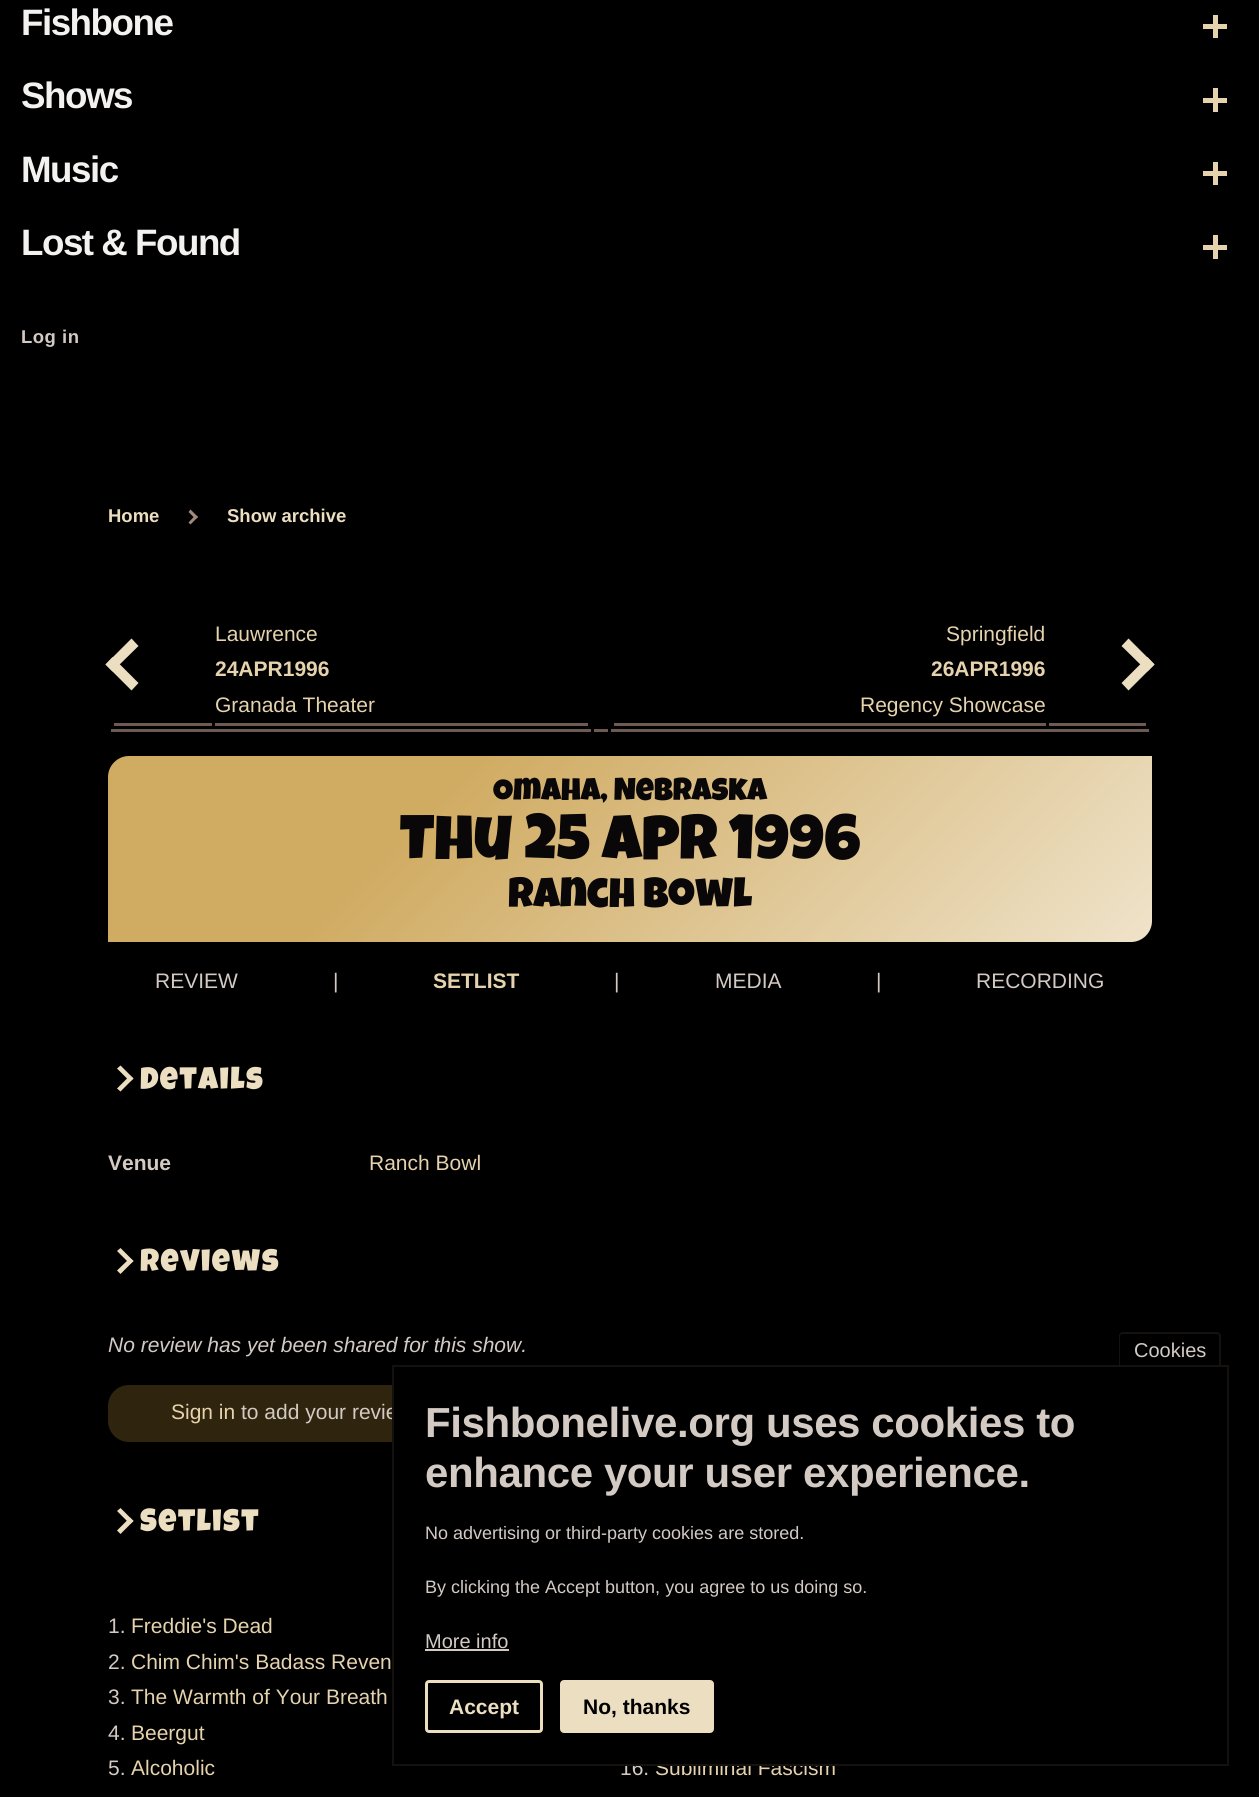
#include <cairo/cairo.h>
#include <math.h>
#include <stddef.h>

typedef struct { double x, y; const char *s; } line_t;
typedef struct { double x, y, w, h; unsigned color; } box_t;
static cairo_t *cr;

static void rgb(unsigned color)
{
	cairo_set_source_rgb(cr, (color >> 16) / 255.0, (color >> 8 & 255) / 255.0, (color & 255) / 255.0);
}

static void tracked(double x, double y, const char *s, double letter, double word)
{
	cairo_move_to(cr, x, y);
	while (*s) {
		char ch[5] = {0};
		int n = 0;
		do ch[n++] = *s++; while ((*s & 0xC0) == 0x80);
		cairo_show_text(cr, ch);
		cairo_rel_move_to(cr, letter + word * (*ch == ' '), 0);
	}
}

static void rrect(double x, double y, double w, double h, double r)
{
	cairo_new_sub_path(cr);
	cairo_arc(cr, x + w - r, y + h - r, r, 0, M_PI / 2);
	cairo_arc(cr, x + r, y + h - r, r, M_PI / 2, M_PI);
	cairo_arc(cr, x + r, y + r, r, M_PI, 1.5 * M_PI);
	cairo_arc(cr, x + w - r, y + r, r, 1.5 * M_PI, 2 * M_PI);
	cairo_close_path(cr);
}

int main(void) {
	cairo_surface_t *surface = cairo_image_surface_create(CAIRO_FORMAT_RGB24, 1259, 1797);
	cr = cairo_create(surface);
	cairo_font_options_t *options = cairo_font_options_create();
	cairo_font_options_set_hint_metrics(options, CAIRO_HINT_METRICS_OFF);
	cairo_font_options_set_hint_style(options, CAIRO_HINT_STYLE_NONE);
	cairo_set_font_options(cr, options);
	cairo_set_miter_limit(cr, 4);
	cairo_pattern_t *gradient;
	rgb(0x000000);
	cairo_paint(cr);
	{
		static const box_t items[] = {
			{1203, 24, 24, 5, 0xe6d3ad},
			{1213, 15, 5, 23, 0xe6d3ad},
			{1203, 98, 24, 5, 0xe6d3ad},
			{1213, 88, 5, 24, 0xe6d3ad},
			{1203, 171, 24, 5, 0xe6d3ad},
			{1213, 162, 5, 23, 0xe6d3ad},
			{1203, 245, 24, 5, 0xe6d3ad},
			{1213, 235, 5, 24, 0xe6d3ad},
		};
		for (size_t i = 0; i < sizeof items / sizeof *items; i++) {
			rgb(items[i].color);
			cairo_rectangle(cr, items[i].x, items[i].y, items[i].w, items[i].h);
			cairo_fill(cr);
		}
	}
	rgb(0xa08a7e);
	cairo_new_path(cr);
	cairo_move_to(cr, 190.5, 509.5);
	cairo_line_to(cr, 198, 517);
	cairo_line_to(cr, 195.5, 519);
	cairo_line_to(cr, 188.5, 512);
	cairo_close_path(cr);
	cairo_fill(cr);
	cairo_new_path(cr);
	cairo_move_to(cr, 195.5, 515);
	cairo_line_to(cr, 198, 517);
	cairo_line_to(cr, 190.5, 524.5);
	cairo_line_to(cr, 188.5, 522.5);
	cairo_close_path(cr);
	cairo_fill(cr);
	rgb(0x6d5a50);
	cairo_rectangle(cr, 111, 729, 480, 3);
	cairo_fill(cr);
	cairo_rectangle(cr, 114, 723, 98, 3);
	cairo_fill(cr);
	rgb(0xecdec0);
	cairo_new_path(cr);
	cairo_move_to(cr, 131.5, 690.5);
	cairo_line_to(cr, 105.5, 664.5);
	cairo_line_to(cr, 112.5, 657);
	cairo_line_to(cr, 138.5, 683);
	cairo_close_path(cr);
	cairo_fill(cr);
	cairo_new_path(cr);
	cairo_move_to(cr, 112.5, 671.5);
	cairo_line_to(cr, 105.5, 664.5);
	cairo_line_to(cr, 131.5, 638.5);
	cairo_line_to(cr, 138.5, 646);
	cairo_close_path(cr);
	cairo_fill(cr);
	{
		static const box_t items[] = {
			{215, 723, 373, 3, 0x6d5a50},
			{611, 729, 538, 3, 0x6d5a50},
			{614, 723, 432, 3, 0x6d5a50},
			{1049, 723, 97, 3, 0x6d5a50},
		};
		for (size_t i = 0; i < sizeof items / sizeof *items; i++) {
			rgb(items[i].color);
			cairo_rectangle(cr, items[i].x, items[i].y, items[i].w, items[i].h);
			cairo_fill(cr);
		}
	}
	rgb(0xecdec0);
	cairo_new_path(cr);
	cairo_move_to(cr, 1128.5, 638.5);
	cairo_line_to(cr, 1154.5, 664.5);
	cairo_line_to(cr, 1147.5, 671.5);
	cairo_line_to(cr, 1121.5, 646);
	cairo_close_path(cr);
	cairo_fill(cr);
	cairo_new_path(cr);
	cairo_move_to(cr, 1147.5, 657);
	cairo_line_to(cr, 1154.5, 664.5);
	cairo_line_to(cr, 1128.5, 690.5);
	cairo_line_to(cr, 1121.5, 683);
	cairo_close_path(cr);
	cairo_fill(cr);
	rgb(0x6d5a50);
	cairo_rectangle(cr, 594, 729, 14, 3);
	cairo_fill(cr);
	gradient = cairo_pattern_create_linear(322, 542, 938, 1157);
	cairo_pattern_add_color_stop_rgba(gradient, 0.3, 0.816, 0.671, 0.384, 1);
	cairo_pattern_add_color_stop_rgba(gradient, 1, 0.937, 0.89, 0.792, 1);
	cairo_set_source(cr, gradient);
	cairo_pattern_destroy(gradient);
	cairo_new_path(cr);
	cairo_move_to(cr, 129, 756);
	cairo_line_to(cr, 1152, 756);
	cairo_line_to(cr, 1152, 921);
	cairo_curve_to(cr, 1152, 932.5, 1142.5, 942, 1131, 942);
	cairo_line_to(cr, 108, 942);
	cairo_line_to(cr, 108, 777);
	cairo_curve_to(cr, 108, 765.5, 117.5, 756, 129, 756);
	cairo_close_path(cr);
	cairo_fill(cr);
	rgb(0xecdec0);
	cairo_new_path(cr);
	cairo_move_to(cr, 120.5, 1065.5);
	cairo_line_to(cr, 133.5, 1078.5);
	cairo_line_to(cr, 130, 1081.5);
	cairo_line_to(cr, 117, 1068.5);
	cairo_close_path(cr);
	cairo_fill(cr);
	cairo_new_path(cr);
	cairo_move_to(cr, 130, 1075.5);
	cairo_line_to(cr, 133.5, 1078.5);
	cairo_line_to(cr, 120.5, 1091.5);
	cairo_line_to(cr, 117, 1088.5);
	cairo_close_path(cr);
	cairo_fill(cr);
	cairo_new_path(cr);
	cairo_move_to(cr, 120.5, 1248);
	cairo_line_to(cr, 133.5, 1261);
	cairo_line_to(cr, 130, 1264);
	cairo_line_to(cr, 117, 1251);
	cairo_close_path(cr);
	cairo_fill(cr);
	cairo_new_path(cr);
	cairo_move_to(cr, 130, 1258);
	cairo_line_to(cr, 133.5, 1261);
	cairo_line_to(cr, 120.5, 1274);
	cairo_line_to(cr, 117, 1270.5);
	cairo_close_path(cr);
	cairo_fill(cr);
	rgb(0x2f240e);
	rrect(108, 1385, 1044, 57, 21);
	cairo_fill(cr);
	rgb(0xecdec0);
	cairo_new_path(cr);
	cairo_move_to(cr, 120.5, 1508);
	cairo_line_to(cr, 133.5, 1521);
	cairo_line_to(cr, 130, 1524);
	cairo_line_to(cr, 117, 1511);
	cairo_close_path(cr);
	cairo_fill(cr);
	cairo_new_path(cr);
	cairo_move_to(cr, 130, 1517.5);
	cairo_line_to(cr, 133.5, 1521);
	cairo_line_to(cr, 120.5, 1534);
	cairo_line_to(cr, 117, 1530.5);
	cairo_close_path(cr);
	cairo_fill(cr);
	rgb(0x15110f);
	cairo_set_fill_rule(cr, CAIRO_FILL_RULE_EVEN_ODD);
	cairo_new_path(cr);
	cairo_move_to(cr, 1123, 1332);
	cairo_line_to(cr, 1216, 1332);
	cairo_curve_to(cr, 1219, 1332, 1221, 1334, 1221, 1336);
	cairo_line_to(cr, 1221, 1368);
	cairo_line_to(cr, 1119, 1368);
	cairo_line_to(cr, 1119, 1336);
	cairo_curve_to(cr, 1119, 1334, 1121, 1332, 1123, 1332);
	cairo_close_path(cr);
	cairo_move_to(cr, 1123, 1334);
	cairo_line_to(cr, 1216, 1334);
	cairo_curve_to(cr, 1218, 1334, 1219, 1335, 1219, 1336);
	cairo_line_to(cr, 1219, 1368);
	cairo_line_to(cr, 1120, 1368);
	cairo_line_to(cr, 1120, 1336);
	cairo_curve_to(cr, 1120, 1335, 1122, 1334, 1123, 1334);
	cairo_close_path(cr);
	cairo_fill(cr);
	cairo_select_font_face(cr, "Liberation Sans", CAIRO_FONT_SLANT_NORMAL, CAIRO_FONT_WEIGHT_BOLD);
	cairo_set_font_size(cr, 36.75);
	rgb(0xf4f2f0);
	{
		static const line_t items[] = {
			{21, 35, "Fishbone"},
			{21, 108, "Shows"},
			{21, 182, "Music"},
			{21, 255, "Lost & Found"},
		};
		for (size_t i = 0; i < sizeof items / sizeof *items; i++) {
			tracked(items[i].x, items[i].y, items[i].s, -1.5, 0);
		}
	}
	cairo_set_font_size(cr, 18.5);
	rgb(0xd4cac4);
	tracked(21, 343, "Log in", 0.5, 0);
	rgb(0xecdec0);
	cairo_move_to(cr, 108, 522);
	cairo_show_text(cr, "Home");
	cairo_move_to(cr, 227, 522);
	cairo_show_text(cr, "Show archive");
	cairo_select_font_face(cr, "Liberation Sans", CAIRO_FONT_SLANT_NORMAL, CAIRO_FONT_WEIGHT_NORMAL);
	cairo_set_font_size(cr, 21);
	rgb(0xe6d3ad);
	cairo_move_to(cr, 215, 641);
	cairo_show_text(cr, "Lauwrence");
	cairo_select_font_face(cr, "Liberation Sans", CAIRO_FONT_SLANT_NORMAL, CAIRO_FONT_WEIGHT_BOLD);
	cairo_move_to(cr, 215, 676);
	cairo_show_text(cr, "24APR1996");
	cairo_select_font_face(cr, "Liberation Sans", CAIRO_FONT_SLANT_NORMAL, CAIRO_FONT_WEIGHT_NORMAL);
	cairo_move_to(cr, 215, 712);
	cairo_show_text(cr, "Granada Theater");
	cairo_move_to(cr, 946, 641);
	cairo_show_text(cr, "Springfield");
	cairo_select_font_face(cr, "Liberation Sans", CAIRO_FONT_SLANT_NORMAL, CAIRO_FONT_WEIGHT_BOLD);
	cairo_move_to(cr, 931, 676);
	cairo_show_text(cr, "26APR1996");
	cairo_select_font_face(cr, "Liberation Sans", CAIRO_FONT_SLANT_NORMAL, CAIRO_FONT_WEIGHT_NORMAL);
	cairo_move_to(cr, 860, 712);
	cairo_show_text(cr, "Regency Showcase");
	cairo_select_font_face(cr, "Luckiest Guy", CAIRO_FONT_SLANT_NORMAL, CAIRO_FONT_WEIGHT_NORMAL);
	cairo_set_font_size(cr, 31.5);
	rgb(0x090707);
	cairo_move_to(cr, 493, 800);
	cairo_show_text(cr, "Omaha, Nebraska");
	cairo_set_font_size(cr, 63);
	cairo_move_to(cr, 400, 859);
	cairo_show_text(cr, "Thu 25 Apr 1996");
	cairo_set_font_size(cr, 42);
	cairo_move_to(cr, 508, 907);
	cairo_show_text(cr, "Ranch Bowl");
	cairo_select_font_face(cr, "Liberation Sans", CAIRO_FONT_SLANT_NORMAL, CAIRO_FONT_WEIGHT_NORMAL);
	cairo_set_font_size(cr, 21);
	rgb(0xd4cac4);
	cairo_move_to(cr, 155, 988);
	cairo_show_text(cr, "REVIEW");
	cairo_move_to(cr, 333, 988);
	cairo_show_text(cr, "|");
	cairo_select_font_face(cr, "Liberation Sans", CAIRO_FONT_SLANT_NORMAL, CAIRO_FONT_WEIGHT_BOLD);
	rgb(0xe6d3ad);
	cairo_move_to(cr, 433, 988);
	cairo_show_text(cr, "SETLIST");
	cairo_select_font_face(cr, "Liberation Sans", CAIRO_FONT_SLANT_NORMAL, CAIRO_FONT_WEIGHT_NORMAL);
	rgb(0xd4cac4);
	{
		static const line_t items[] = {
			{614, 988, "|"},
			{715, 988, "MEDIA"},
			{876, 988, "|"},
			{976, 988, "RECORDING"},
		};
		for (size_t i = 0; i < sizeof items / sizeof *items; i++) {
			cairo_move_to(cr, items[i].x, items[i].y);
			cairo_show_text(cr, items[i].s);
		}
	}
	cairo_select_font_face(cr, "Luckiest Guy", CAIRO_FONT_SLANT_NORMAL, CAIRO_FONT_WEIGHT_NORMAL);
	cairo_set_font_size(cr, 31.5);
	rgb(0xecdec0);
	tracked(140, 1089, "Details", 1.5, 0);
	cairo_select_font_face(cr, "Liberation Sans", CAIRO_FONT_SLANT_NORMAL, CAIRO_FONT_WEIGHT_BOLD);
	cairo_set_font_size(cr, 21);
	rgb(0xd4cac4);
	cairo_move_to(cr, 108, 1170);
	cairo_show_text(cr, "Venue");
	cairo_select_font_face(cr, "Liberation Sans", CAIRO_FONT_SLANT_NORMAL, CAIRO_FONT_WEIGHT_NORMAL);
	rgb(0xe6d3ad);
	cairo_move_to(cr, 369, 1170);
	cairo_show_text(cr, "Ranch Bowl");
	cairo_select_font_face(cr, "Luckiest Guy", CAIRO_FONT_SLANT_NORMAL, CAIRO_FONT_WEIGHT_NORMAL);
	cairo_set_font_size(cr, 31.5);
	rgb(0xecdec0);
	tracked(140, 1271, "Reviews", 1.5, 0);
	cairo_select_font_face(cr, "Liberation Sans", CAIRO_FONT_SLANT_ITALIC, CAIRO_FONT_WEIGHT_NORMAL);
	cairo_set_font_size(cr, 21);
	rgb(0xd4cac4);
	cairo_move_to(cr, 108, 1352);
	cairo_show_text(cr, "No review has yet been shared for this show.");
	cairo_select_font_face(cr, "Liberation Sans", CAIRO_FONT_SLANT_NORMAL, CAIRO_FONT_WEIGHT_NORMAL);
	rgb(0xe6d3ad);
	cairo_move_to(cr, 171, 1419);
	cairo_show_text(cr, "Sign in");
	rgb(0xd4cac4);
	cairo_move_to(cr, 241, 1419);
	cairo_show_text(cr, "to add your revie");
	cairo_select_font_face(cr, "Luckiest Guy", CAIRO_FONT_SLANT_NORMAL, CAIRO_FONT_WEIGHT_NORMAL);
	cairo_set_font_size(cr, 31.5);
	rgb(0xecdec0);
	tracked(140, 1531, "Setlist", 1.5, 0);
	cairo_select_font_face(cr, "Liberation Sans", CAIRO_FONT_SLANT_NORMAL, CAIRO_FONT_WEIGHT_NORMAL);
	cairo_set_font_size(cr, 21);
	rgb(0xd4cac4);
	cairo_move_to(cr, 108, 1633);
	cairo_show_text(cr, "1.");
	rgb(0xe6d3ad);
	cairo_move_to(cr, 131, 1633);
	cairo_show_text(cr, "Freddie's Dead");
	rgb(0xd4cac4);
	cairo_move_to(cr, 108, 1669);
	cairo_show_text(cr, "2.");
	rgb(0xe6d3ad);
	cairo_move_to(cr, 131, 1669);
	cairo_show_text(cr, "Chim Chim's Badass Reven");
	rgb(0xd4cac4);
	cairo_move_to(cr, 108, 1704);
	cairo_show_text(cr, "3.");
	rgb(0xe6d3ad);
	cairo_move_to(cr, 131, 1704);
	cairo_show_text(cr, "The Warmth of Your Breath");
	rgb(0xd4cac4);
	cairo_move_to(cr, 108, 1740);
	cairo_show_text(cr, "4.");
	rgb(0xe6d3ad);
	cairo_move_to(cr, 131, 1740);
	cairo_show_text(cr, "Beergut");
	rgb(0xd4cac4);
	cairo_move_to(cr, 108, 1775);
	cairo_show_text(cr, "5.");
	rgb(0xe6d3ad);
	cairo_move_to(cr, 131, 1775);
	cairo_show_text(cr, "Alcoholic");
	rgb(0xd4cac4);
	cairo_move_to(cr, 620, 1775);
	cairo_show_text(cr, "16.");
	rgb(0xe6d3ad);
	cairo_move_to(cr, 655, 1775);
	cairo_show_text(cr, "Subliminal Fascism");
	cairo_set_font_size(cr, 20);
	rgb(0xd4cac4);
	cairo_move_to(cr, 1134, 1357);
	cairo_show_text(cr, "Cookies");
	rgb(0x000000);
	cairo_rectangle(cr, 394, 1367, 827, 397);
	cairo_fill(cr);
	cairo_rectangle(cr, 393, 1366, 835, 399);
	rgb(0x15110f);
	cairo_stroke(cr);
	cairo_select_font_face(cr, "Liberation Sans", CAIRO_FONT_SLANT_NORMAL, CAIRO_FONT_WEIGHT_BOLD);
	cairo_set_font_size(cr, 42);
	rgb(0xd4cac4);
	tracked(425, 1437, "Fishbonelive.org uses cookies to", -0.4, 0);
	tracked(425, 1487, "enhance your user experience.", -0.4, 0);
	cairo_select_font_face(cr, "Liberation Sans", CAIRO_FONT_SLANT_NORMAL, CAIRO_FONT_WEIGHT_NORMAL);
	cairo_set_font_size(cr, 18);
	cairo_move_to(cr, 425, 1539);
	cairo_show_text(cr, "No advertising or third-party cookies are stored.");
	cairo_move_to(cr, 425, 1593);
	cairo_show_text(cr, "By clicking the Accept button, you agree to us doing so.");
	cairo_set_font_size(cr, 20);
	cairo_move_to(cr, 425, 1648);
	cairo_show_text(cr, "More info");
	cairo_rectangle(cr, 425, 1649, 84, 2);
	cairo_fill(cr);
	rrect(426.5, 1681.5, 115, 50, 2.5);
	rgb(0xecdec0);
	cairo_set_line_width(cr, 3);
	cairo_stroke(cr);
	cairo_select_font_face(cr, "Liberation Sans", CAIRO_FONT_SLANT_NORMAL, CAIRO_FONT_WEIGHT_BOLD);
	cairo_set_font_size(cr, 21);
	cairo_move_to(cr, 449, 1714);
	cairo_show_text(cr, "Accept");
	rrect(561.5, 1681.5, 151, 50, 2.5);
	cairo_fill_preserve(cr);
	cairo_stroke(cr);
	rgb(0x000000);
	cairo_move_to(cr, 583, 1714);
	cairo_show_text(cr, "No, thanks");
	cairo_surface_write_to_png(surface, "page.png");
	cairo_font_options_destroy(options);
	cairo_destroy(cr);
	cairo_surface_destroy(surface);
	return 0;
}
